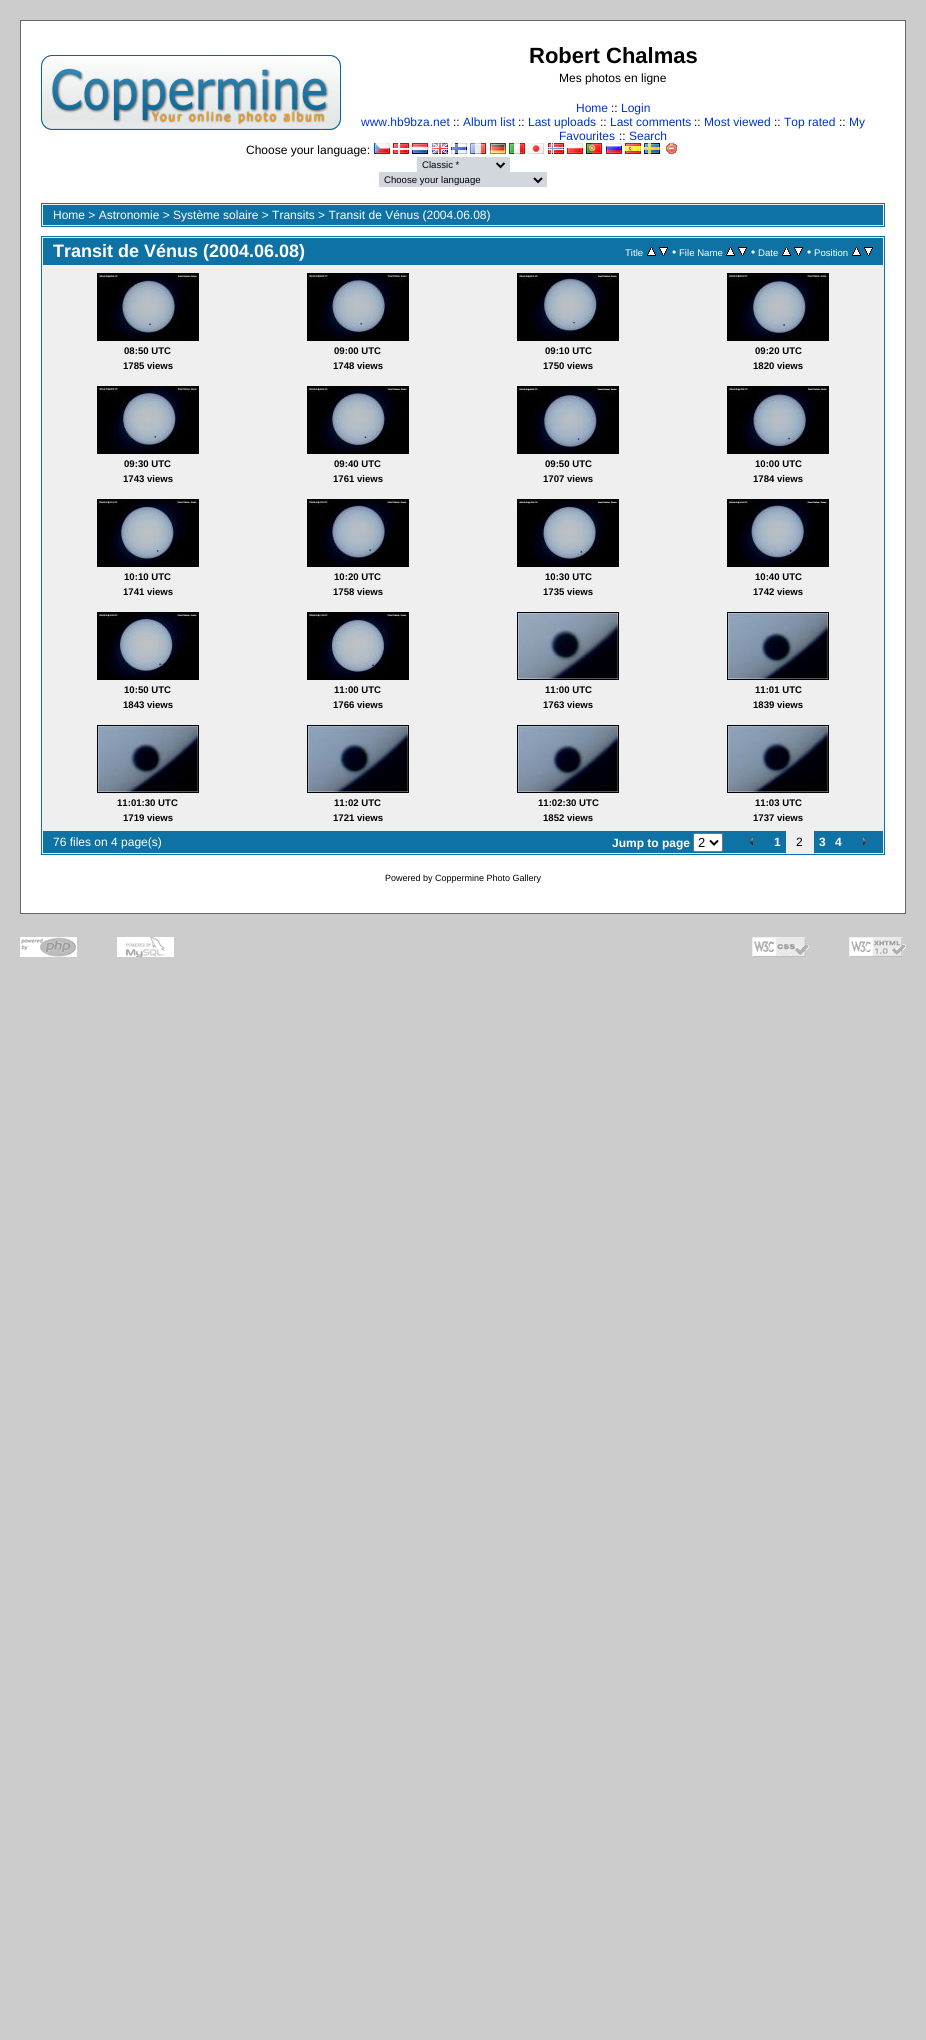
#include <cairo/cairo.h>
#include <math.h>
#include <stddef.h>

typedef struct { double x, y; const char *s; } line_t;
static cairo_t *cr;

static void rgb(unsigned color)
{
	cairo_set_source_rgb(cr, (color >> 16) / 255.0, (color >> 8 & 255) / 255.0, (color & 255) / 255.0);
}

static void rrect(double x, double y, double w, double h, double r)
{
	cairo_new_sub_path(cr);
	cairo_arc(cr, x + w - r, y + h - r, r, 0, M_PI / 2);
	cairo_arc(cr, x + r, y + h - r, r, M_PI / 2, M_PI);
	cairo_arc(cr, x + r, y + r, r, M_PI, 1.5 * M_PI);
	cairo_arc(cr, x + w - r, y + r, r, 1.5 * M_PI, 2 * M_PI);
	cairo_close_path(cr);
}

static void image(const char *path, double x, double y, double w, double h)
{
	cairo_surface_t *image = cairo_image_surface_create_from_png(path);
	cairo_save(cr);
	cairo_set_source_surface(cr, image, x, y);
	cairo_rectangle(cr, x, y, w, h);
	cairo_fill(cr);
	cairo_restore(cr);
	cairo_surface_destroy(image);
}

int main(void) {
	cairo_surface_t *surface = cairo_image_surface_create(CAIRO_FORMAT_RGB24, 926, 2040);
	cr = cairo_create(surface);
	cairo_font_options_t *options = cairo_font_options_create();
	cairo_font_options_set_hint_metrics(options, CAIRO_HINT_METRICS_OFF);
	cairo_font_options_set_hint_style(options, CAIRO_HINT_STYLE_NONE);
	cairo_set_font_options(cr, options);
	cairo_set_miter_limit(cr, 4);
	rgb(0xcccccc);
	cairo_paint(cr);
	rgb(0xffffff);
	cairo_rectangle(cr, 20.5, 20.5, 885, 893);
	cairo_fill_preserve(cr);
	rgb(0x666666);
	cairo_set_line_width(cr, 1);
	cairo_stroke(cr);
	image("img/1.png", 41, 55, 300, 75);
	image("img/2.png", 374, 143, 16, 11);
	image("img/3.png", 393, 143, 16, 11);
	image("img/4.png", 412, 143, 16, 11);
	image("img/5.png", 432, 143, 16, 11);
	image("img/6.png", 451, 143, 16, 11);
	image("img/7.png", 470, 143, 16, 11);
	image("img/8.png", 490, 143, 16, 11);
	image("img/9.png", 509, 143, 16, 11);
	image("img/10.png", 528, 143, 16, 11);
	image("img/11.png", 548, 143, 16, 11);
	image("img/12.png", 567, 143, 16, 11);
	image("img/13.png", 586, 143, 16, 11);
	image("img/14.png", 606, 143, 16, 11);
	image("img/15.png", 625, 143, 16, 11);
	image("img/16.png", 644, 143, 16, 11);
	image("img/17.png", 666, 143, 11, 11);
	rgb(0xd1d7dc);
	cairo_rectangle(cr, 417, 157, 93, 15);
	cairo_fill(cr);
	cairo_new_path(cr);
	cairo_move_to(cr, 496.5, 163);
	cairo_line_to(cr, 500.5, 167);
	cairo_line_to(cr, 504.5, 163);
	rgb(0x000000);
	cairo_set_line_width(cr, 2);
	cairo_stroke(cr);
	rgb(0xd1d7dc);
	cairo_rectangle(cr, 379, 172, 168, 15);
	cairo_fill(cr);
	cairo_new_path(cr);
	cairo_move_to(cr, 534, 178);
	cairo_line_to(cr, 538, 182);
	cairo_line_to(cr, 542, 178);
	rgb(0x000000);
	cairo_stroke(cr);
	rgb(0xefefef);
	cairo_rectangle(cr, 41.5, 203.5, 843, 23);
	cairo_fill_preserve(cr);
	rgb(0x0e72a4);
	cairo_set_line_width(cr, 1);
	cairo_stroke(cr);
	cairo_rectangle(cr, 43, 205, 840, 20);
	cairo_fill(cr);
	rgb(0xefefef);
	cairo_rectangle(cr, 41.5, 236.5, 843, 618);
	cairo_fill_preserve(cr);
	rgb(0x0e72a4);
	cairo_stroke(cr);
	cairo_rectangle(cr, 43, 238, 840, 27);
	cairo_fill(cr);
	image("img/18.png", 647, 247, 9, 9);
	image("img/19.png", 659, 247, 9, 9);
	image("img/18.png", 726, 247, 9, 9);
	image("img/19.png", 738, 247, 9, 9);
	image("img/18.png", 782, 247, 9, 9);
	image("img/19.png", 794, 247, 9, 9);
	image("img/18.png", 852, 247, 9, 9);
	image("img/19.png", 864, 247, 9, 9);
	cairo_rectangle(cr, 97.5, 273.5, 101, 67);
	rgb(0x000000);
	cairo_stroke(cr);
	image("img/20.png", 98, 274, 100, 66);
	cairo_rectangle(cr, 307.5, 273.5, 101, 67);
	cairo_stroke(cr);
	image("img/21.png", 308, 274, 100, 66);
	cairo_rectangle(cr, 517.5, 273.5, 101, 67);
	cairo_stroke(cr);
	image("img/22.png", 518, 274, 100, 66);
	cairo_rectangle(cr, 727.5, 273.5, 101, 67);
	cairo_stroke(cr);
	image("img/23.png", 728, 274, 100, 66);
	cairo_rectangle(cr, 97.5, 386.5, 101, 67);
	cairo_stroke(cr);
	image("img/24.png", 98, 387, 100, 66);
	cairo_rectangle(cr, 307.5, 386.5, 101, 67);
	cairo_stroke(cr);
	image("img/25.png", 308, 387, 100, 66);
	cairo_rectangle(cr, 517.5, 386.5, 101, 67);
	cairo_stroke(cr);
	image("img/26.png", 518, 387, 100, 66);
	cairo_rectangle(cr, 727.5, 386.5, 101, 67);
	cairo_stroke(cr);
	image("img/27.png", 728, 387, 100, 66);
	cairo_rectangle(cr, 97.5, 499.5, 101, 67);
	cairo_stroke(cr);
	image("img/28.png", 98, 500, 100, 66);
	cairo_rectangle(cr, 307.5, 499.5, 101, 67);
	cairo_stroke(cr);
	image("img/29.png", 308, 500, 100, 66);
	cairo_rectangle(cr, 517.5, 499.5, 101, 67);
	cairo_stroke(cr);
	image("img/30.png", 518, 500, 100, 66);
	cairo_rectangle(cr, 727.5, 499.5, 101, 67);
	cairo_stroke(cr);
	image("img/31.png", 728, 500, 100, 66);
	cairo_rectangle(cr, 97.5, 612.5, 101, 67);
	cairo_stroke(cr);
	image("img/32.png", 98, 613, 100, 66);
	cairo_rectangle(cr, 307.5, 612.5, 101, 67);
	cairo_stroke(cr);
	image("img/33.png", 308, 613, 100, 66);
	cairo_rectangle(cr, 517.5, 612.5, 101, 67);
	cairo_stroke(cr);
	image("img/34.png", 518, 613, 100, 66);
	cairo_rectangle(cr, 727.5, 612.5, 101, 67);
	cairo_stroke(cr);
	image("img/35.png", 728, 613, 100, 66);
	cairo_rectangle(cr, 97.5, 725.5, 101, 67);
	cairo_stroke(cr);
	image("img/36.png", 98, 726, 100, 66);
	cairo_rectangle(cr, 307.5, 725.5, 101, 67);
	cairo_stroke(cr);
	image("img/37.png", 308, 726, 100, 66);
	cairo_rectangle(cr, 517.5, 725.5, 101, 67);
	cairo_stroke(cr);
	image("img/38.png", 518, 726, 100, 66);
	cairo_rectangle(cr, 727.5, 725.5, 101, 67);
	cairo_stroke(cr);
	image("img/39.png", 728, 726, 100, 66);
	rgb(0x0e72a4);
	cairo_rectangle(cr, 43, 831, 743, 22);
	cairo_fill(cr);
	rgb(0xffffff);
	rrect(693.5, 833.5, 29, 18, 1.5);
	cairo_fill_preserve(cr);
	rgb(0x767676);
	cairo_stroke(cr);
	cairo_new_path(cr);
	cairo_move_to(cr, 710, 840.5);
	cairo_line_to(cr, 714, 844.5);
	cairo_line_to(cr, 718, 840.5);
	rgb(0x000000);
	cairo_set_line_width(cr, 2);
	cairo_stroke(cr);
	image("img/40.png", 749, 838, 4, 7);
	rgb(0x0e72a4);
	cairo_rectangle(cr, 814, 831, 69, 22);
	cairo_fill(cr);
	image("img/41.png", 863, 838, 4, 7);
	image("img/42.png", 20, 937, 57, 20);
	image("img/43.png", 117, 937, 57, 20);
	image("img/44.png", 752, 937, 57, 20);
	image("img/45.png", 849, 937, 57, 20);
	cairo_select_font_face(cr, "Liberation Sans", CAIRO_FONT_SLANT_NORMAL, CAIRO_FONT_WEIGHT_BOLD);
	cairo_set_font_size(cr, 22);
	rgb(0x000000);
	cairo_move_to(cr, 529, 63);
	cairo_show_text(cr, "Robert Chalmas");
	cairo_select_font_face(cr, "Liberation Sans", CAIRO_FONT_SLANT_NORMAL, CAIRO_FONT_WEIGHT_NORMAL);
	cairo_set_font_size(cr, 12);
	cairo_move_to(cr, 559, 82);
	cairo_show_text(cr, "Mes photos en ligne");
	rgb(0x0033cc);
	cairo_move_to(cr, 576, 112);
	cairo_show_text(cr, "Home");
	rgb(0x000000);
	cairo_move_to(cr, 611, 112);
	cairo_show_text(cr, "::");
	rgb(0x0033cc);
	cairo_move_to(cr, 621, 112);
	cairo_show_text(cr, "Login");
	cairo_move_to(cr, 361, 126);
	cairo_show_text(cr, "www.hb9bza.net");
	rgb(0x000000);
	cairo_move_to(cr, 453, 126);
	cairo_show_text(cr, "::");
	rgb(0x0033cc);
	cairo_move_to(cr, 463, 126);
	cairo_show_text(cr, "Album list");
	rgb(0x000000);
	cairo_move_to(cr, 518, 126);
	cairo_show_text(cr, "::");
	rgb(0x0033cc);
	cairo_move_to(cr, 528, 126);
	cairo_show_text(cr, "Last uploads");
	rgb(0x000000);
	cairo_move_to(cr, 600, 126);
	cairo_show_text(cr, "::");
	rgb(0x0033cc);
	cairo_move_to(cr, 610, 126);
	cairo_show_text(cr, "Last comments");
	rgb(0x000000);
	cairo_move_to(cr, 694, 126);
	cairo_show_text(cr, "::");
	rgb(0x0033cc);
	cairo_move_to(cr, 704, 126);
	cairo_show_text(cr, "Most viewed");
	rgb(0x000000);
	cairo_move_to(cr, 774, 126);
	cairo_show_text(cr, "::");
	rgb(0x0033cc);
	cairo_move_to(cr, 784, 126);
	cairo_show_text(cr, "Top rated");
	rgb(0x000000);
	cairo_move_to(cr, 839, 126);
	cairo_show_text(cr, "::");
	rgb(0x0033cc);
	cairo_move_to(cr, 849, 126);
	cairo_show_text(cr, "My");
	cairo_move_to(cr, 559, 140);
	cairo_show_text(cr, "Favourites");
	rgb(0x000000);
	cairo_move_to(cr, 619, 140);
	cairo_show_text(cr, "::");
	rgb(0x0033cc);
	cairo_move_to(cr, 629, 140);
	cairo_show_text(cr, "Search");
	rgb(0x000000);
	cairo_move_to(cr, 246, 154);
	cairo_show_text(cr, "Choose your language:");
	cairo_set_font_size(cr, 9.6);
	cairo_move_to(cr, 422, 168);
	cairo_show_text(cr, "Classic *");
	cairo_move_to(cr, 384, 183);
	cairo_show_text(cr, "Choose your language");
	cairo_set_font_size(cr, 12);
	rgb(0xffffff);
	cairo_move_to(cr, 53, 219);
	cairo_show_text(cr, "Home > Astronomie > Système solaire > Transits > Transit de Vénus (2004.06.08)");
	cairo_select_font_face(cr, "Liberation Sans", CAIRO_FONT_SLANT_NORMAL, CAIRO_FONT_WEIGHT_BOLD);
	cairo_set_font_size(cr, 18);
	cairo_move_to(cr, 53, 257);
	cairo_show_text(cr, "Transit de Vénus (2004.06.08)");
	cairo_select_font_face(cr, "Liberation Sans", CAIRO_FONT_SLANT_NORMAL, CAIRO_FONT_WEIGHT_NORMAL);
	cairo_set_font_size(cr, 9.6);
	cairo_move_to(cr, 625, 256);
	cairo_show_text(cr, "Title");
	cairo_set_font_size(cr, 12);
	cairo_move_to(cr, 672, 256);
	cairo_show_text(cr, "•");
	cairo_set_font_size(cr, 9.6);
	cairo_move_to(cr, 679, 256);
	cairo_show_text(cr, "File Name");
	cairo_set_font_size(cr, 12);
	cairo_move_to(cr, 751, 256);
	cairo_show_text(cr, "•");
	cairo_set_font_size(cr, 9.6);
	cairo_move_to(cr, 758, 256);
	cairo_show_text(cr, "Date");
	cairo_set_font_size(cr, 12);
	cairo_move_to(cr, 807, 256);
	cairo_show_text(cr, "•");
	cairo_set_font_size(cr, 9.6);
	cairo_move_to(cr, 814, 256);
	cairo_show_text(cr, "Position");
	cairo_select_font_face(cr, "Liberation Sans", CAIRO_FONT_SLANT_NORMAL, CAIRO_FONT_WEIGHT_BOLD);
	rgb(0x000000);
	{
		static const line_t items[] = {
			{124, 354, "08:50 UTC"},
			{123, 369, "1785 views"},
			{334, 354, "09:00 UTC"},
			{333, 369, "1748 views"},
			{545, 354, "09:10 UTC"},
			{543, 369, "1750 views"},
			{755, 354, "09:20 UTC"},
			{753, 369, "1820 views"},
			{124, 467, "09:30 UTC"},
			{123, 482, "1743 views"},
			{334, 467, "09:40 UTC"},
			{333, 482, "1761 views"},
			{545, 467, "09:50 UTC"},
			{543, 482, "1707 views"},
			{755, 467, "10:00 UTC"},
			{753, 482, "1784 views"},
			{124, 580, "10:10 UTC"},
			{123, 595, "1741 views"},
			{334, 580, "10:20 UTC"},
			{333, 595, "1758 views"},
			{545, 580, "10:30 UTC"},
			{543, 595, "1735 views"},
			{755, 580, "10:40 UTC"},
			{753, 595, "1742 views"},
			{124, 693, "10:50 UTC"},
			{123, 708, "1843 views"},
			{334, 693, "11:00 UTC"},
			{333, 708, "1766 views"},
			{545, 693, "11:00 UTC"},
			{543, 708, "1763 views"},
			{755, 693, "11:01 UTC"},
			{753, 708, "1839 views"},
			{117, 806, "11:01:30 UTC"},
			{123, 821, "1719 views"},
			{334, 806, "11:02 UTC"},
			{333, 821, "1721 views"},
			{538, 806, "11:02:30 UTC"},
			{543, 821, "1852 views"},
			{755, 806, "11:03 UTC"},
			{753, 821, "1737 views"},
		};
		for (size_t i = 0; i < sizeof items / sizeof *items; i++) {
			cairo_move_to(cr, items[i].x, items[i].y);
			cairo_show_text(cr, items[i].s);
		}
	}
	cairo_select_font_face(cr, "Liberation Sans", CAIRO_FONT_SLANT_NORMAL, CAIRO_FONT_WEIGHT_NORMAL);
	cairo_set_font_size(cr, 12);
	rgb(0xffffff);
	cairo_move_to(cr, 53, 846);
	cairo_show_text(cr, "76 files on 4 page(s)");
	cairo_select_font_face(cr, "Liberation Sans", CAIRO_FONT_SLANT_NORMAL, CAIRO_FONT_WEIGHT_BOLD);
	cairo_move_to(cr, 612, 847);
	cairo_show_text(cr, "Jump to page");
	cairo_select_font_face(cr, "Liberation Sans", CAIRO_FONT_SLANT_NORMAL, CAIRO_FONT_WEIGHT_NORMAL);
	cairo_set_font_size(cr, 13);
	rgb(0x000000);
	cairo_move_to(cr, 698, 847);
	cairo_show_text(cr, "2");
	cairo_select_font_face(cr, "Liberation Sans", CAIRO_FONT_SLANT_NORMAL, CAIRO_FONT_WEIGHT_BOLD);
	cairo_set_font_size(cr, 12);
	rgb(0xffffff);
	cairo_move_to(cr, 774, 846);
	cairo_show_text(cr, "1");
	cairo_select_font_face(cr, "Liberation Sans", CAIRO_FONT_SLANT_NORMAL, CAIRO_FONT_WEIGHT_NORMAL);
	rgb(0x000000);
	cairo_move_to(cr, 796, 846);
	cairo_show_text(cr, "2");
	cairo_select_font_face(cr, "Liberation Sans", CAIRO_FONT_SLANT_NORMAL, CAIRO_FONT_WEIGHT_BOLD);
	rgb(0xffffff);
	cairo_move_to(cr, 819, 846);
	cairo_show_text(cr, "3");
	cairo_move_to(cr, 835, 846);
	cairo_show_text(cr, "4");
	cairo_select_font_face(cr, "Liberation Sans", CAIRO_FONT_SLANT_NORMAL, CAIRO_FONT_WEIGHT_NORMAL);
	cairo_set_font_size(cr, 9);
	rgb(0x000000);
	cairo_move_to(cr, 385, 881);
	cairo_show_text(cr, "Powered by Coppermine Photo Gallery");
	cairo_surface_write_to_png(surface, "page.png");
	cairo_font_options_destroy(options);
	cairo_destroy(cr);
	cairo_surface_destroy(surface);
	return 0;
}
